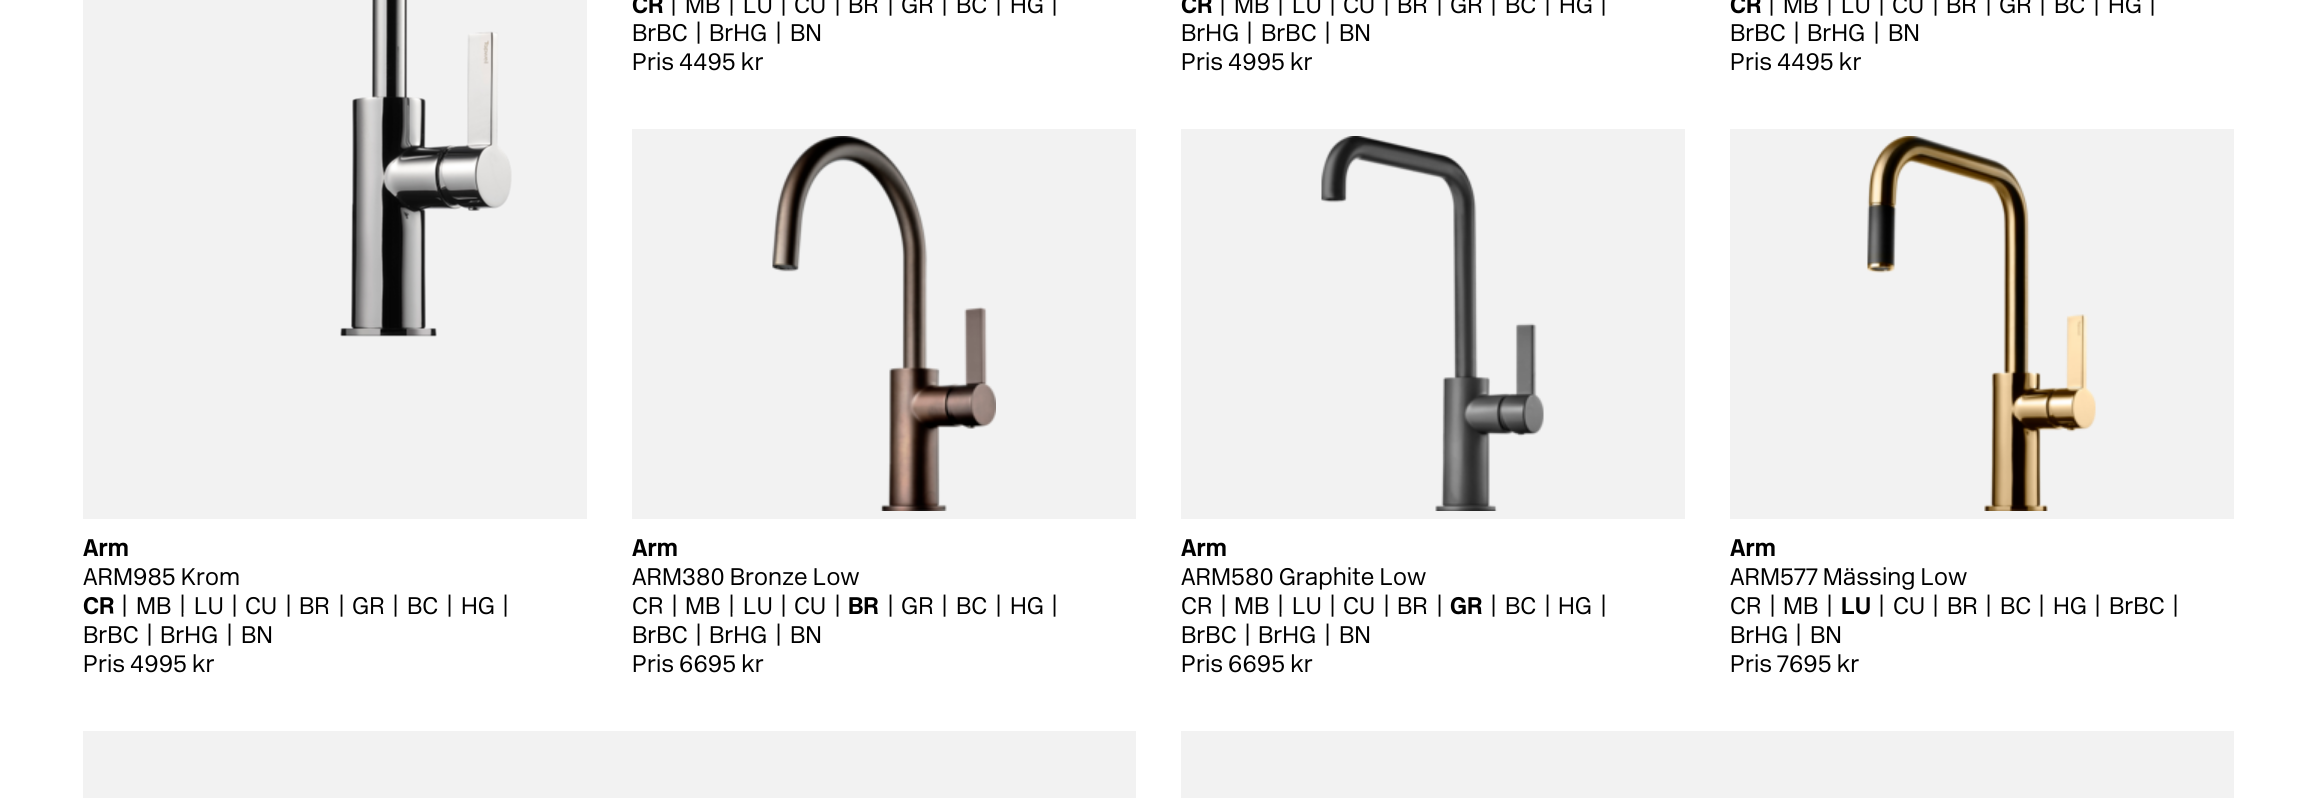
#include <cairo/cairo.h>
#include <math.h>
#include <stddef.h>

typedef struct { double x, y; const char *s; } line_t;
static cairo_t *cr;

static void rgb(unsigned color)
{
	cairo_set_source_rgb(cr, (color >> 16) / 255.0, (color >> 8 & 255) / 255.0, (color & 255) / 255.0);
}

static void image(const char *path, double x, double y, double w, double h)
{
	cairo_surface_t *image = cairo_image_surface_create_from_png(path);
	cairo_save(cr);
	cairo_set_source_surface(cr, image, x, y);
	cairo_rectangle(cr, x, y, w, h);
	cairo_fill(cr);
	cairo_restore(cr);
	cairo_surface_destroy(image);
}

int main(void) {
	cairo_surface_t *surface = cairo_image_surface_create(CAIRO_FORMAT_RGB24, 2315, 798);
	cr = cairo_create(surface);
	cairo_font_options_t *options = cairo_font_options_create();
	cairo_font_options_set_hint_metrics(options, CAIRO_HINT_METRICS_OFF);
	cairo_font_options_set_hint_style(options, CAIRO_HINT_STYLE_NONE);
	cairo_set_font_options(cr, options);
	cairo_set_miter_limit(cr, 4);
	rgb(0xffffff);
	cairo_paint(cr);
	rgb(0xf2f2f2);
	cairo_rectangle(cr, 83, 0, 504, 519);
	cairo_fill(cr);
	image("img/1.png", 340, 0, 172, 337);
	cairo_rectangle(cr, 632, 129, 504, 390);
	cairo_fill(cr);
	image("img/2.png", 772, 136, 224, 375);
	cairo_rectangle(cr, 1181, 129, 504, 390);
	cairo_fill(cr);
	image("img/3.png", 1321, 136, 223, 375);
	cairo_rectangle(cr, 1730, 129, 504, 390);
	cairo_fill(cr);
	image("img/4.png", 1867, 136, 229, 375);
	cairo_rectangle(cr, 83, 731, 1053, 67);
	cairo_fill(cr);
	cairo_rectangle(cr, 1181, 731, 1053, 67);
	cairo_fill(cr);
	cairo_select_font_face(cr, "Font", CAIRO_FONT_SLANT_NORMAL, CAIRO_FONT_WEIGHT_BOLD);
	cairo_set_font_size(cr, 24);
	rgb(0x000000);
	cairo_move_to(cr, 632, 13);
	cairo_show_text(cr, "CR");
	cairo_select_font_face(cr, "Font Light", CAIRO_FONT_SLANT_NORMAL, CAIRO_FONT_WEIGHT_NORMAL);
	{
		static const line_t items[] = {
			{670, 13, "|"},
			{685, 13, "MB"},
			{728, 13, "|"},
			{743, 13, "LU"},
			{780, 13, "|"},
			{794, 13, "CU"},
			{834, 13, "|"},
			{848, 13, "BR"},
			{887, 13, "|"},
			{901, 13, "GR"},
			{941, 13, "|"},
			{956, 13, "BC"},
			{995, 13, "|"},
			{1010, 13, "HG"},
			{1051, 13, "|"},
			{632, 41, "BrBC"},
			{695, 41, "|"},
		};
		for (size_t i = 0; i < sizeof items / sizeof *items; i++) {
			cairo_move_to(cr, items[i].x, items[i].y);
			cairo_show_text(cr, items[i].s);
		}
	}
	rgb(0xffffff);
	cairo_new_path(cr);
	cairo_move_to(cr, 732, 13.5);
	cairo_line_to(cr, 744, 13.5);
	cairo_line_to(cr, 738, 19.5);
	cairo_close_path(cr);
	cairo_fill(cr);
	rgb(0x000000);
	cairo_move_to(cr, 709, 41);
	cairo_show_text(cr, "BrHG");
	cairo_move_to(cr, 775, 41);
	cairo_show_text(cr, "|");
	rgb(0xffffff);
	cairo_new_path(cr);
	cairo_move_to(cr, 799.5, 13.5);
	cairo_line_to(cr, 811.5, 13.5);
	cairo_line_to(cr, 805.5, 19.5);
	cairo_close_path(cr);
	cairo_fill(cr);
	rgb(0x000000);
	cairo_move_to(cr, 790, 41);
	cairo_show_text(cr, "BN");
	cairo_move_to(cr, 632, 70);
	cairo_show_text(cr, "Pris 4495 kr");
	cairo_select_font_face(cr, "Font", CAIRO_FONT_SLANT_NORMAL, CAIRO_FONT_WEIGHT_BOLD);
	cairo_move_to(cr, 1181, 13);
	cairo_show_text(cr, "CR");
	cairo_select_font_face(cr, "Font Light", CAIRO_FONT_SLANT_NORMAL, CAIRO_FONT_WEIGHT_NORMAL);
	{
		static const line_t items[] = {
			{1219, 13, "|"},
			{1234, 13, "MB"},
			{1277, 13, "|"},
			{1292, 13, "LU"},
			{1329, 13, "|"},
			{1343, 13, "CU"},
			{1383, 13, "|"},
			{1397, 13, "BR"},
			{1436, 13, "|"},
			{1450, 13, "GR"},
			{1490, 13, "|"},
			{1505, 13, "BC"},
			{1544, 13, "|"},
			{1559, 13, "HG"},
			{1600, 13, "|"},
			{1181, 41, "BrHG"},
			{1246, 41, "|"},
			{1261, 41, "BrBC"},
			{1324, 41, "|"},
		};
		for (size_t i = 0; i < sizeof items / sizeof *items; i++) {
			cairo_move_to(cr, items[i].x, items[i].y);
			cairo_show_text(cr, items[i].s);
		}
	}
	rgb(0xffffff);
	cairo_new_path(cr);
	cairo_move_to(cr, 1348.5, 13.5);
	cairo_line_to(cr, 1360.5, 13.5);
	cairo_line_to(cr, 1354.5, 19.5);
	cairo_close_path(cr);
	cairo_fill(cr);
	rgb(0x000000);
	cairo_move_to(cr, 1339, 41);
	cairo_show_text(cr, "BN");
	cairo_move_to(cr, 1181, 70);
	cairo_show_text(cr, "Pris 4995 kr");
	cairo_select_font_face(cr, "Font", CAIRO_FONT_SLANT_NORMAL, CAIRO_FONT_WEIGHT_BOLD);
	cairo_move_to(cr, 1730, 13);
	cairo_show_text(cr, "CR");
	cairo_select_font_face(cr, "Font Light", CAIRO_FONT_SLANT_NORMAL, CAIRO_FONT_WEIGHT_NORMAL);
	{
		static const line_t items[] = {
			{1768, 13, "|"},
			{1783, 13, "MB"},
			{1826, 13, "|"},
			{1841, 13, "LU"},
			{1878, 13, "|"},
			{1892, 13, "CU"},
			{1932, 13, "|"},
			{1946, 13, "BR"},
			{1985, 13, "|"},
			{1999, 13, "GR"},
			{2039, 13, "|"},
			{2054, 13, "BC"},
			{2093, 13, "|"},
			{2108, 13, "HG"},
			{2149, 13, "|"},
			{1730, 41, "BrBC"},
			{1793, 41, "|"},
		};
		for (size_t i = 0; i < sizeof items / sizeof *items; i++) {
			cairo_move_to(cr, items[i].x, items[i].y);
			cairo_show_text(cr, items[i].s);
		}
	}
	rgb(0xffffff);
	cairo_new_path(cr);
	cairo_move_to(cr, 1830, 13.5);
	cairo_line_to(cr, 1842, 13.5);
	cairo_line_to(cr, 1836, 19.5);
	cairo_close_path(cr);
	cairo_fill(cr);
	rgb(0x000000);
	cairo_move_to(cr, 1807, 41);
	cairo_show_text(cr, "BrHG");
	cairo_move_to(cr, 1873, 41);
	cairo_show_text(cr, "|");
	rgb(0xffffff);
	cairo_new_path(cr);
	cairo_move_to(cr, 1897.5, 13.5);
	cairo_line_to(cr, 1909.5, 13.5);
	cairo_line_to(cr, 1903.5, 19.5);
	cairo_close_path(cr);
	cairo_fill(cr);
	rgb(0x000000);
	cairo_move_to(cr, 1888, 41);
	cairo_show_text(cr, "BN");
	cairo_move_to(cr, 1730, 70);
	cairo_show_text(cr, "Pris 4495 kr");
	cairo_select_font_face(cr, "Font", CAIRO_FONT_SLANT_NORMAL, CAIRO_FONT_WEIGHT_BOLD);
	cairo_move_to(cr, 83, 556);
	cairo_show_text(cr, "Arm");
	cairo_select_font_face(cr, "Font Light", CAIRO_FONT_SLANT_NORMAL, CAIRO_FONT_WEIGHT_NORMAL);
	cairo_move_to(cr, 83, 585);
	cairo_show_text(cr, "ARM985 Krom");
	cairo_select_font_face(cr, "Font", CAIRO_FONT_SLANT_NORMAL, CAIRO_FONT_WEIGHT_BOLD);
	cairo_move_to(cr, 83, 614);
	cairo_show_text(cr, "CR");
	cairo_select_font_face(cr, "Font Light", CAIRO_FONT_SLANT_NORMAL, CAIRO_FONT_WEIGHT_NORMAL);
	{
		static const line_t items[] = {
			{121, 614, "|"},
			{136, 614, "MB"},
			{179, 614, "|"},
			{194, 614, "LU"},
			{231, 614, "|"},
			{245, 614, "CU"},
			{285, 614, "|"},
			{299, 614, "BR"},
			{338, 614, "|"},
			{352, 614, "GR"},
			{392, 614, "|"},
			{407, 614, "BC"},
			{446, 614, "|"},
			{461, 614, "HG"},
			{502, 614, "|"},
		};
		for (size_t i = 0; i < sizeof items / sizeof *items; i++) {
			cairo_move_to(cr, items[i].x, items[i].y);
			cairo_show_text(cr, items[i].s);
		}
	}
	rgb(0xffffff);
	cairo_new_path(cr);
	cairo_move_to(cr, 105, 613.5);
	cairo_line_to(cr, 117, 613.5);
	cairo_line_to(cr, 111, 619.5);
	cairo_close_path(cr);
	cairo_fill(cr);
	rgb(0x000000);
	cairo_move_to(cr, 83, 643);
	cairo_show_text(cr, "BrBC");
	cairo_move_to(cr, 146, 643);
	cairo_show_text(cr, "|");
	rgb(0xffffff);
	cairo_new_path(cr);
	cairo_move_to(cr, 183, 613.5);
	cairo_line_to(cr, 195, 613.5);
	cairo_line_to(cr, 189, 619.5);
	cairo_close_path(cr);
	cairo_fill(cr);
	rgb(0x000000);
	{
		static const line_t items[] = {
			{160, 643, "BrHG"},
			{226, 643, "|"},
			{241, 643, "BN"},
			{83, 672, "Pris 4995 kr"},
		};
		for (size_t i = 0; i < sizeof items / sizeof *items; i++) {
			cairo_move_to(cr, items[i].x, items[i].y);
			cairo_show_text(cr, items[i].s);
		}
	}
	cairo_select_font_face(cr, "Font", CAIRO_FONT_SLANT_NORMAL, CAIRO_FONT_WEIGHT_BOLD);
	cairo_move_to(cr, 632, 556);
	cairo_show_text(cr, "Arm");
	cairo_select_font_face(cr, "Font Light", CAIRO_FONT_SLANT_NORMAL, CAIRO_FONT_WEIGHT_NORMAL);
	{
		static const line_t items[] = {
			{632, 585, "ARM380 Bronze Low"},
			{632, 614, "CR"},
			{671, 614, "|"},
			{685, 614, "MB"},
			{728, 614, "|"},
			{743, 614, "LU"},
			{780, 614, "|"},
			{794, 614, "CU"},
			{834, 614, "|"},
		};
		for (size_t i = 0; i < sizeof items / sizeof *items; i++) {
			cairo_move_to(cr, items[i].x, items[i].y);
			cairo_show_text(cr, items[i].s);
		}
	}
	cairo_select_font_face(cr, "Font", CAIRO_FONT_SLANT_NORMAL, CAIRO_FONT_WEIGHT_BOLD);
	cairo_move_to(cr, 848, 614);
	cairo_show_text(cr, "BR");
	cairo_select_font_face(cr, "Font Light", CAIRO_FONT_SLANT_NORMAL, CAIRO_FONT_WEIGHT_NORMAL);
	{
		static const line_t items[] = {
			{887, 614, "|"},
			{901, 614, "GR"},
			{941, 614, "|"},
			{956, 614, "BC"},
			{995, 614, "|"},
			{1010, 614, "HG"},
			{1051, 614, "|"},
		};
		for (size_t i = 0; i < sizeof items / sizeof *items; i++) {
			cairo_move_to(cr, items[i].x, items[i].y);
			cairo_show_text(cr, items[i].s);
		}
	}
	rgb(0xffffff);
	cairo_new_path(cr);
	cairo_move_to(cr, 654, 613.5);
	cairo_line_to(cr, 666, 613.5);
	cairo_line_to(cr, 660, 619.5);
	cairo_close_path(cr);
	cairo_fill(cr);
	rgb(0x000000);
	cairo_move_to(cr, 632, 643);
	cairo_show_text(cr, "BrBC");
	cairo_move_to(cr, 695, 643);
	cairo_show_text(cr, "|");
	rgb(0xffffff);
	cairo_new_path(cr);
	cairo_move_to(cr, 732, 613.5);
	cairo_line_to(cr, 744, 613.5);
	cairo_line_to(cr, 738, 619.5);
	cairo_close_path(cr);
	cairo_fill(cr);
	rgb(0x000000);
	{
		static const line_t items[] = {
			{709, 643, "BrHG"},
			{775, 643, "|"},
			{790, 643, "BN"},
			{632, 672, "Pris 6695 kr"},
		};
		for (size_t i = 0; i < sizeof items / sizeof *items; i++) {
			cairo_move_to(cr, items[i].x, items[i].y);
			cairo_show_text(cr, items[i].s);
		}
	}
	cairo_select_font_face(cr, "Font", CAIRO_FONT_SLANT_NORMAL, CAIRO_FONT_WEIGHT_BOLD);
	cairo_move_to(cr, 1181, 556);
	cairo_show_text(cr, "Arm");
	cairo_select_font_face(cr, "Font Light", CAIRO_FONT_SLANT_NORMAL, CAIRO_FONT_WEIGHT_NORMAL);
	{
		static const line_t items[] = {
			{1181, 585, "ARM580 Graphite Low"},
			{1181, 614, "CR"},
			{1220, 614, "|"},
			{1234, 614, "MB"},
			{1277, 614, "|"},
			{1292, 614, "LU"},
			{1329, 614, "|"},
			{1343, 614, "CU"},
			{1383, 614, "|"},
			{1397, 614, "BR"},
			{1436, 614, "|"},
		};
		for (size_t i = 0; i < sizeof items / sizeof *items; i++) {
			cairo_move_to(cr, items[i].x, items[i].y);
			cairo_show_text(cr, items[i].s);
		}
	}
	cairo_select_font_face(cr, "Font", CAIRO_FONT_SLANT_NORMAL, CAIRO_FONT_WEIGHT_BOLD);
	cairo_move_to(cr, 1450, 614);
	cairo_show_text(cr, "GR");
	cairo_select_font_face(cr, "Font Light", CAIRO_FONT_SLANT_NORMAL, CAIRO_FONT_WEIGHT_NORMAL);
	{
		static const line_t items[] = {
			{1490, 614, "|"},
			{1505, 614, "BC"},
			{1544, 614, "|"},
			{1558, 614, "HG"},
			{1600, 614, "|"},
		};
		for (size_t i = 0; i < sizeof items / sizeof *items; i++) {
			cairo_move_to(cr, items[i].x, items[i].y);
			cairo_show_text(cr, items[i].s);
		}
	}
	rgb(0xffffff);
	cairo_new_path(cr);
	cairo_move_to(cr, 1203, 613.5);
	cairo_line_to(cr, 1215, 613.5);
	cairo_line_to(cr, 1209, 619.5);
	cairo_close_path(cr);
	cairo_fill(cr);
	rgb(0x000000);
	cairo_move_to(cr, 1181, 643);
	cairo_show_text(cr, "BrBC");
	cairo_move_to(cr, 1244, 643);
	cairo_show_text(cr, "|");
	rgb(0xffffff);
	cairo_new_path(cr);
	cairo_move_to(cr, 1281, 613.5);
	cairo_line_to(cr, 1293, 613.5);
	cairo_line_to(cr, 1287, 619.5);
	cairo_close_path(cr);
	cairo_fill(cr);
	rgb(0x000000);
	{
		static const line_t items[] = {
			{1258, 643, "BrHG"},
			{1324, 643, "|"},
			{1339, 643, "BN"},
			{1181, 672, "Pris 6695 kr"},
		};
		for (size_t i = 0; i < sizeof items / sizeof *items; i++) {
			cairo_move_to(cr, items[i].x, items[i].y);
			cairo_show_text(cr, items[i].s);
		}
	}
	cairo_select_font_face(cr, "Font", CAIRO_FONT_SLANT_NORMAL, CAIRO_FONT_WEIGHT_BOLD);
	cairo_move_to(cr, 1730, 556);
	cairo_show_text(cr, "Arm");
	cairo_select_font_face(cr, "Font Light", CAIRO_FONT_SLANT_NORMAL, CAIRO_FONT_WEIGHT_NORMAL);
	{
		static const line_t items[] = {
			{1730, 585, "ARM577 Mässing Low"},
			{1730, 614, "CR"},
			{1769, 614, "|"},
			{1783, 614, "MB"},
			{1826, 614, "|"},
		};
		for (size_t i = 0; i < sizeof items / sizeof *items; i++) {
			cairo_move_to(cr, items[i].x, items[i].y);
			cairo_show_text(cr, items[i].s);
		}
	}
	cairo_select_font_face(cr, "Font", CAIRO_FONT_SLANT_NORMAL, CAIRO_FONT_WEIGHT_BOLD);
	cairo_move_to(cr, 1841, 614);
	cairo_show_text(cr, "LU");
	cairo_select_font_face(cr, "Font Light", CAIRO_FONT_SLANT_NORMAL, CAIRO_FONT_WEIGHT_NORMAL);
	{
		static const line_t items[] = {
			{1878, 614, "|"},
			{1893, 614, "CU"},
			{1932, 614, "|"},
			{1947, 614, "BR"},
			{1985, 614, "|"},
			{2000, 614, "BC"},
			{2038, 614, "|"},
			{2053, 614, "HG"},
			{2094, 614, "|"},
			{2109, 614, "BrBC"},
			{2172, 614, "|"},
		};
		for (size_t i = 0; i < sizeof items / sizeof *items; i++) {
			cairo_move_to(cr, items[i].x, items[i].y);
			cairo_show_text(cr, items[i].s);
		}
	}
	rgb(0xffffff);
	cairo_new_path(cr);
	cairo_move_to(cr, 1752, 613.5);
	cairo_line_to(cr, 1764, 613.5);
	cairo_line_to(cr, 1758, 619.5);
	cairo_close_path(cr);
	cairo_fill(cr);
	rgb(0x000000);
	{
		static const line_t items[] = {
			{1730, 643, "BrHG"},
			{1795, 643, "|"},
			{1810, 643, "BN"},
			{1730, 672, "Pris 7695 kr"},
		};
		for (size_t i = 0; i < sizeof items / sizeof *items; i++) {
			cairo_move_to(cr, items[i].x, items[i].y);
			cairo_show_text(cr, items[i].s);
		}
	}
	cairo_surface_write_to_png(surface, "page.png");
	cairo_font_options_destroy(options);
	cairo_destroy(cr);
	cairo_surface_destroy(surface);
	return 0;
}
